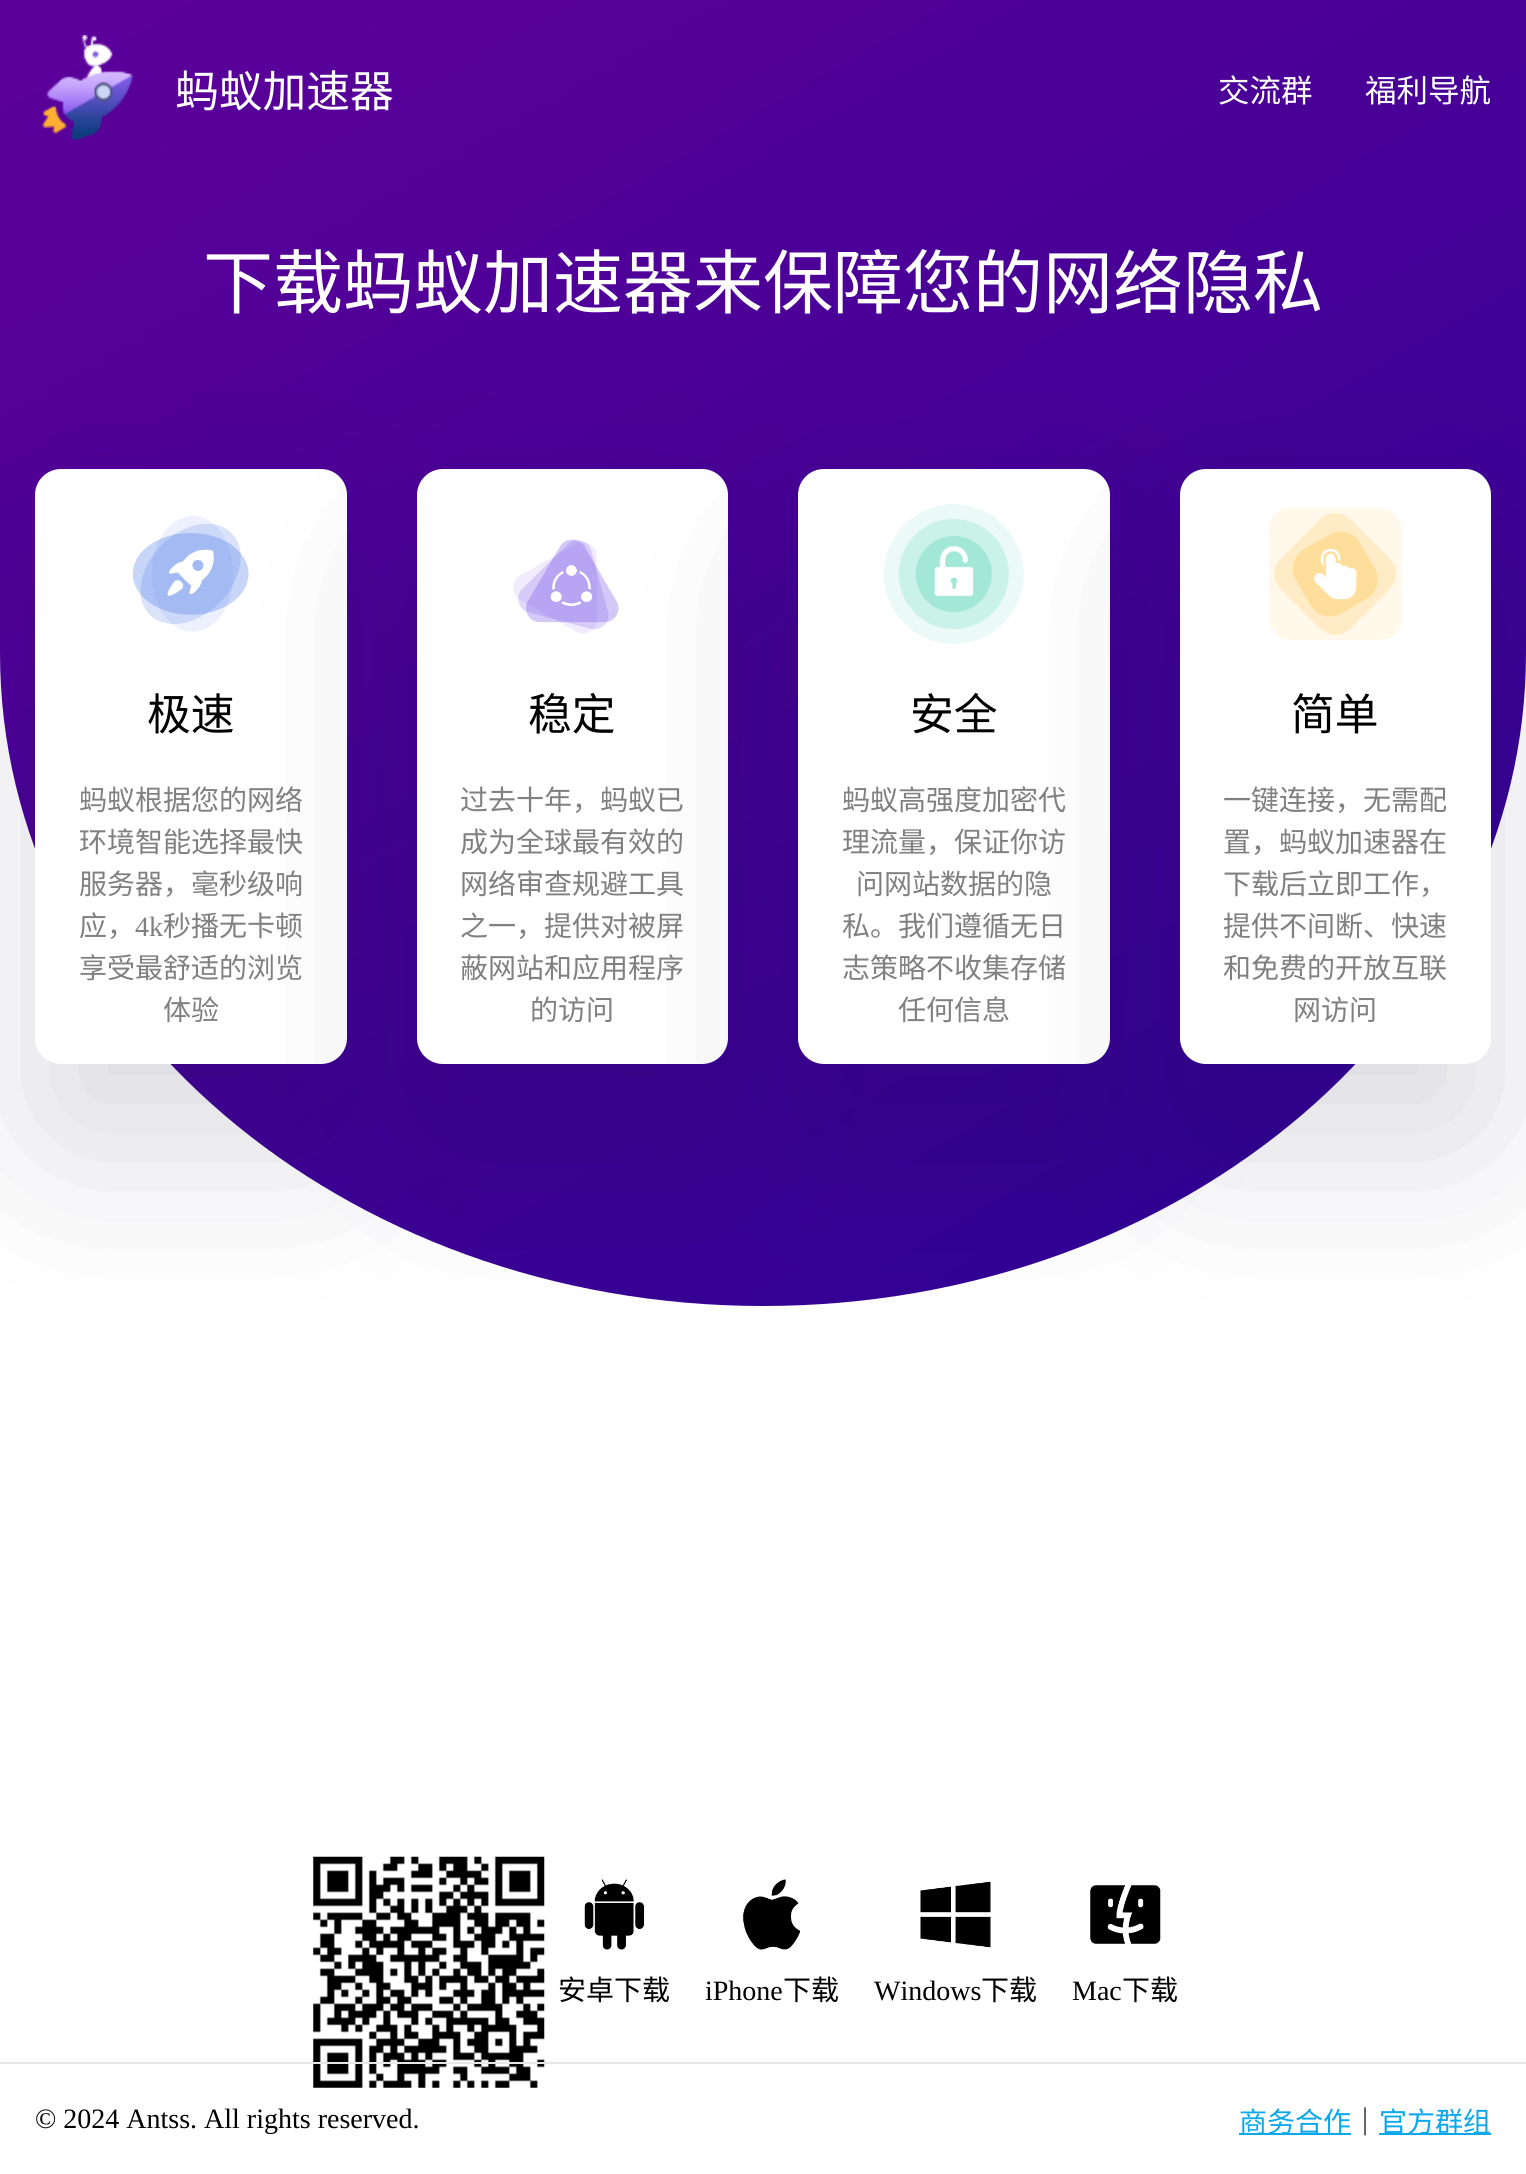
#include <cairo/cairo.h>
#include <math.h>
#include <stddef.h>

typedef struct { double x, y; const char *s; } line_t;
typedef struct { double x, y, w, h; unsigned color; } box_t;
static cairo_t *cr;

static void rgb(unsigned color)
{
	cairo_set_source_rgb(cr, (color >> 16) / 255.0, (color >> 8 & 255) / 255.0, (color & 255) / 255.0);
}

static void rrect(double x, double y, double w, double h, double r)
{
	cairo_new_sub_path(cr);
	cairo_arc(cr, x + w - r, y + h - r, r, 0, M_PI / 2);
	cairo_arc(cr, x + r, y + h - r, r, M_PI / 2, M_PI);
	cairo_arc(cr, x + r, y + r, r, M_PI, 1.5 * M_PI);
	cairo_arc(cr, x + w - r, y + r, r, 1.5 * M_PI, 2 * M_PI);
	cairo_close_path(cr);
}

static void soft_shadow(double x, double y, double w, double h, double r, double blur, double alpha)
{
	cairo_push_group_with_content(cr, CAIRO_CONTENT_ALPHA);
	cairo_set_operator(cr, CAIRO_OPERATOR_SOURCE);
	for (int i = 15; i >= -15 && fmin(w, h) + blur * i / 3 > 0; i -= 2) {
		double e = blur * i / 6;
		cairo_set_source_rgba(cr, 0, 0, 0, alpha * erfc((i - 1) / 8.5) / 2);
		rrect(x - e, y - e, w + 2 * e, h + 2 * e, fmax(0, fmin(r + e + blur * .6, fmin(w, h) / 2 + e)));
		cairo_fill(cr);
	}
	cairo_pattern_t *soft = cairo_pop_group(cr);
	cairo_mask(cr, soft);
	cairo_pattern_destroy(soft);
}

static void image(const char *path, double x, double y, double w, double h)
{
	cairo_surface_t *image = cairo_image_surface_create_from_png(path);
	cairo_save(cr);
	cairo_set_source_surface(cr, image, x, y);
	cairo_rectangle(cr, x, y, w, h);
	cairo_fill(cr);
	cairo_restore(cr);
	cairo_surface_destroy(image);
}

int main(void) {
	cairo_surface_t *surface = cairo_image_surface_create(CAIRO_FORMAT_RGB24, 1526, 2174);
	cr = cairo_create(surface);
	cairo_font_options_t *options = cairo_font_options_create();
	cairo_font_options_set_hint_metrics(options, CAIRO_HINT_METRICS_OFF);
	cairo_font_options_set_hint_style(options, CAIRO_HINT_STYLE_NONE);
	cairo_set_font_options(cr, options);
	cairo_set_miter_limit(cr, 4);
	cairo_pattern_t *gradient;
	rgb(0xffffff);
	cairo_paint(cr);
	gradient = cairo_pattern_create_linear(290, -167, 1236, 1473);
	cairo_pattern_add_color_stop_rgba(gradient, 0, 0.365, 0, 0.604, 1);
	cairo_pattern_add_color_stop_rgba(gradient, 1, 0.169, 0.004, 0.576, 1);
	cairo_set_source(cr, gradient);
	cairo_pattern_destroy(gradient);
	cairo_new_path(cr);
	cairo_move_to(cr, 0, 0);
	cairo_line_to(cr, 1526, 0);
	cairo_line_to(cr, 1526, 653);
	cairo_curve_to(cr, 1526, 1013, 1184, 1306, 763, 1306);
	cairo_curve_to(cr, 342, 1306, 0, 1013, 0, 653);
	cairo_close_path(cr);
	cairo_fill(cr);
	image("img/1.png", 41, 35, 93, 105);
	rgb(0x110c2e);
	soft_shadow(35, 553, 312, 595, 26, 87.5, 0.15);
	rgb(0xffffff);
	rrect(35, 469, 312, 595, 26);
	cairo_fill(cr);
	image("img/2.png", 132, 516, 117, 116);
	rgb(0x110c2e);
	soft_shadow(417, 553, 311, 595, 26, 87.5, 0.15);
	rgb(0xffffff);
	rrect(417, 469, 311, 595, 26);
	cairo_fill(cr);
	image("img/3.png", 513, 539, 106, 95);
	rgb(0x110c2e);
	soft_shadow(798, 553, 312, 595, 26, 87.5, 0.15);
	rgb(0xffffff);
	rrect(798, 469, 312, 595, 26);
	cairo_fill(cr);
	image("img/4.png", 883, 504, 141, 140);
	rgb(0x110c2e);
	soft_shadow(1180, 553, 311, 595, 26, 87.5, 0.15);
	rgb(0xffffff);
	rrect(1180, 469, 311, 595, 26);
	cairo_fill(cr);
	image("img/5.png", 1269, 507, 133, 134);
	image("img/6.png", 313, 1856, 232, 232);
	image("img/7.png", 584, 1879, 61, 71);
	image("img/8.png", 743, 1879, 58, 71);
	image("img/9.png", 920, 1881, 71, 67);
	image("img/10.png", 1090, 1885, 71, 59);
	{
		static const box_t items[] = {
			{0, 2062, 1526, 2, 0xe7e7e9},
			{1239, 2133, 112, 2, 0x0ba8eb},
			{1379, 2133, 112, 2, 0x0ba8eb},
		};
		for (size_t i = 0; i < sizeof items / sizeof *items; i++) {
			rgb(items[i].color);
			cairo_rectangle(cr, items[i].x, items[i].y, items[i].w, items[i].h);
			cairo_fill(cr);
		}
	}
	cairo_select_font_face(cr, "Noto Sans CJK SC", CAIRO_FONT_SLANT_NORMAL, CAIRO_FONT_WEIGHT_NORMAL);
	cairo_set_font_size(cr, 43.75);
	rgb(0xffffff);
	cairo_move_to(cr, 175, 107);
	cairo_show_text(cr, "蚂蚁加速器");
	cairo_set_font_size(cr, 31.5);
	cairo_move_to(cr, 1218, 102);
	cairo_show_text(cr, "交流群");
	cairo_move_to(cr, 1365, 102);
	cairo_show_text(cr, "福利导航");
	cairo_set_font_size(cr, 70);
	cairo_move_to(cr, 203, 308);
	cairo_show_text(cr, "下载蚂蚁加速器来保障您的网络隐私");
	cairo_set_font_size(cr, 43.75);
	rgb(0x000000);
	cairo_move_to(cr, 147, 730);
	cairo_show_text(cr, "极速");
	cairo_set_font_size(cr, 28);
	rgb(0x808080);
	{
		static const line_t items[] = {
			{79, 810, "蚂蚁根据您的网络"},
			{79, 852, "环境智能选择最快"},
			{79, 894, "服务器，毫秒级响"},
			{79, 936, "应，"},
		};
		for (size_t i = 0; i < sizeof items / sizeof *items; i++) {
			cairo_move_to(cr, items[i].x, items[i].y);
			cairo_show_text(cr, items[i].s);
		}
	}
	cairo_select_font_face(cr, "Liberation Serif", CAIRO_FONT_SLANT_NORMAL, CAIRO_FONT_WEIGHT_NORMAL);
	cairo_move_to(cr, 135, 936);
	cairo_show_text(cr, "4k");
	cairo_select_font_face(cr, "Noto Sans CJK SC", CAIRO_FONT_SLANT_NORMAL, CAIRO_FONT_WEIGHT_NORMAL);
	{
		static const line_t items[] = {
			{163, 936, "秒播无卡顿"},
			{79, 978, "享受最舒适的浏览"},
			{163, 1020, "体验"},
		};
		for (size_t i = 0; i < sizeof items / sizeof *items; i++) {
			cairo_move_to(cr, items[i].x, items[i].y);
			cairo_show_text(cr, items[i].s);
		}
	}
	cairo_set_font_size(cr, 43.75);
	rgb(0x000000);
	cairo_move_to(cr, 528, 730);
	cairo_show_text(cr, "稳定");
	cairo_set_font_size(cr, 28);
	rgb(0x808080);
	{
		static const line_t items[] = {
			{460, 810, "过去十年，蚂蚁已"},
			{460, 852, "成为全球最有效的"},
			{460, 894, "网络审查规避工具"},
			{460, 936, "之一，提供对被屏"},
			{460, 978, "蔽网站和应用程序"},
			{530, 1020, "的访问"},
		};
		for (size_t i = 0; i < sizeof items / sizeof *items; i++) {
			cairo_move_to(cr, items[i].x, items[i].y);
			cairo_show_text(cr, items[i].s);
		}
	}
	cairo_set_font_size(cr, 43.75);
	rgb(0x000000);
	cairo_move_to(cr, 910, 730);
	cairo_show_text(cr, "安全");
	cairo_set_font_size(cr, 28);
	rgb(0x808080);
	{
		static const line_t items[] = {
			{842, 810, "蚂蚁高强度加密代"},
			{842, 852, "理流量，保证你访"},
			{856, 894, "问网站数据的隐"},
			{842, 936, "私。我们遵循无日"},
			{842, 978, "志策略不收集存储"},
			{898, 1020, "任何信息"},
		};
		for (size_t i = 0; i < sizeof items / sizeof *items; i++) {
			cairo_move_to(cr, items[i].x, items[i].y);
			cairo_show_text(cr, items[i].s);
		}
	}
	cairo_set_font_size(cr, 43.75);
	rgb(0x000000);
	cairo_move_to(cr, 1291, 730);
	cairo_show_text(cr, "简单");
	cairo_set_font_size(cr, 28);
	rgb(0x808080);
	{
		static const line_t items[] = {
			{1223, 810, "一键连接，无需配"},
			{1223, 852, "置，蚂蚁加速器在"},
			{1223, 894, "下载后立即工作，"},
			{1223, 936, "提供不间断、快速"},
			{1223, 978, "和免费的开放互联"},
			{1293, 1020, "网访问"},
		};
		for (size_t i = 0; i < sizeof items / sizeof *items; i++) {
			cairo_move_to(cr, items[i].x, items[i].y);
			cairo_show_text(cr, items[i].s);
		}
	}
	rgb(0x000000);
	cairo_move_to(cr, 558, 2000);
	cairo_show_text(cr, "安卓下载");
	cairo_select_font_face(cr, "Liberation Serif", CAIRO_FONT_SLANT_NORMAL, CAIRO_FONT_WEIGHT_NORMAL);
	cairo_move_to(cr, 705, 2000);
	cairo_show_text(cr, "iPhone");
	cairo_select_font_face(cr, "Noto Sans CJK SC", CAIRO_FONT_SLANT_NORMAL, CAIRO_FONT_WEIGHT_NORMAL);
	cairo_move_to(cr, 783, 2000);
	cairo_show_text(cr, "下载");
	cairo_select_font_face(cr, "Liberation Serif", CAIRO_FONT_SLANT_NORMAL, CAIRO_FONT_WEIGHT_NORMAL);
	cairo_move_to(cr, 874, 2000);
	cairo_show_text(cr, "Windows");
	cairo_select_font_face(cr, "Noto Sans CJK SC", CAIRO_FONT_SLANT_NORMAL, CAIRO_FONT_WEIGHT_NORMAL);
	cairo_move_to(cr, 981, 2000);
	cairo_show_text(cr, "下载");
	cairo_select_font_face(cr, "Liberation Serif", CAIRO_FONT_SLANT_NORMAL, CAIRO_FONT_WEIGHT_NORMAL);
	cairo_move_to(cr, 1072, 2000);
	cairo_show_text(cr, "Mac");
	cairo_select_font_face(cr, "Noto Sans CJK SC", CAIRO_FONT_SLANT_NORMAL, CAIRO_FONT_WEIGHT_NORMAL);
	cairo_move_to(cr, 1122, 2000);
	cairo_show_text(cr, "下载");
	cairo_select_font_face(cr, "Liberation Serif", CAIRO_FONT_SLANT_NORMAL, CAIRO_FONT_WEIGHT_NORMAL);
	cairo_move_to(cr, 35, 2128);
	cairo_show_text(cr, "© 2024 Antss. All rights reserved.");
	cairo_select_font_face(cr, "Noto Sans CJK SC", CAIRO_FONT_SLANT_NORMAL, CAIRO_FONT_WEIGHT_NORMAL);
	rgb(0x0ba8eb);
	cairo_move_to(cr, 1239, 2132);
	cairo_show_text(cr, "商务合作");
	rgb(0x000000);
	cairo_move_to(cr, 1351, 2132);
	cairo_show_text(cr, "｜");
	rgb(0x0ba8eb);
	cairo_move_to(cr, 1379, 2132);
	cairo_show_text(cr, "官方群组");
	cairo_surface_write_to_png(surface, "page.png");
	cairo_font_options_destroy(options);
	cairo_destroy(cr);
	cairo_surface_destroy(surface);
	return 0;
}
